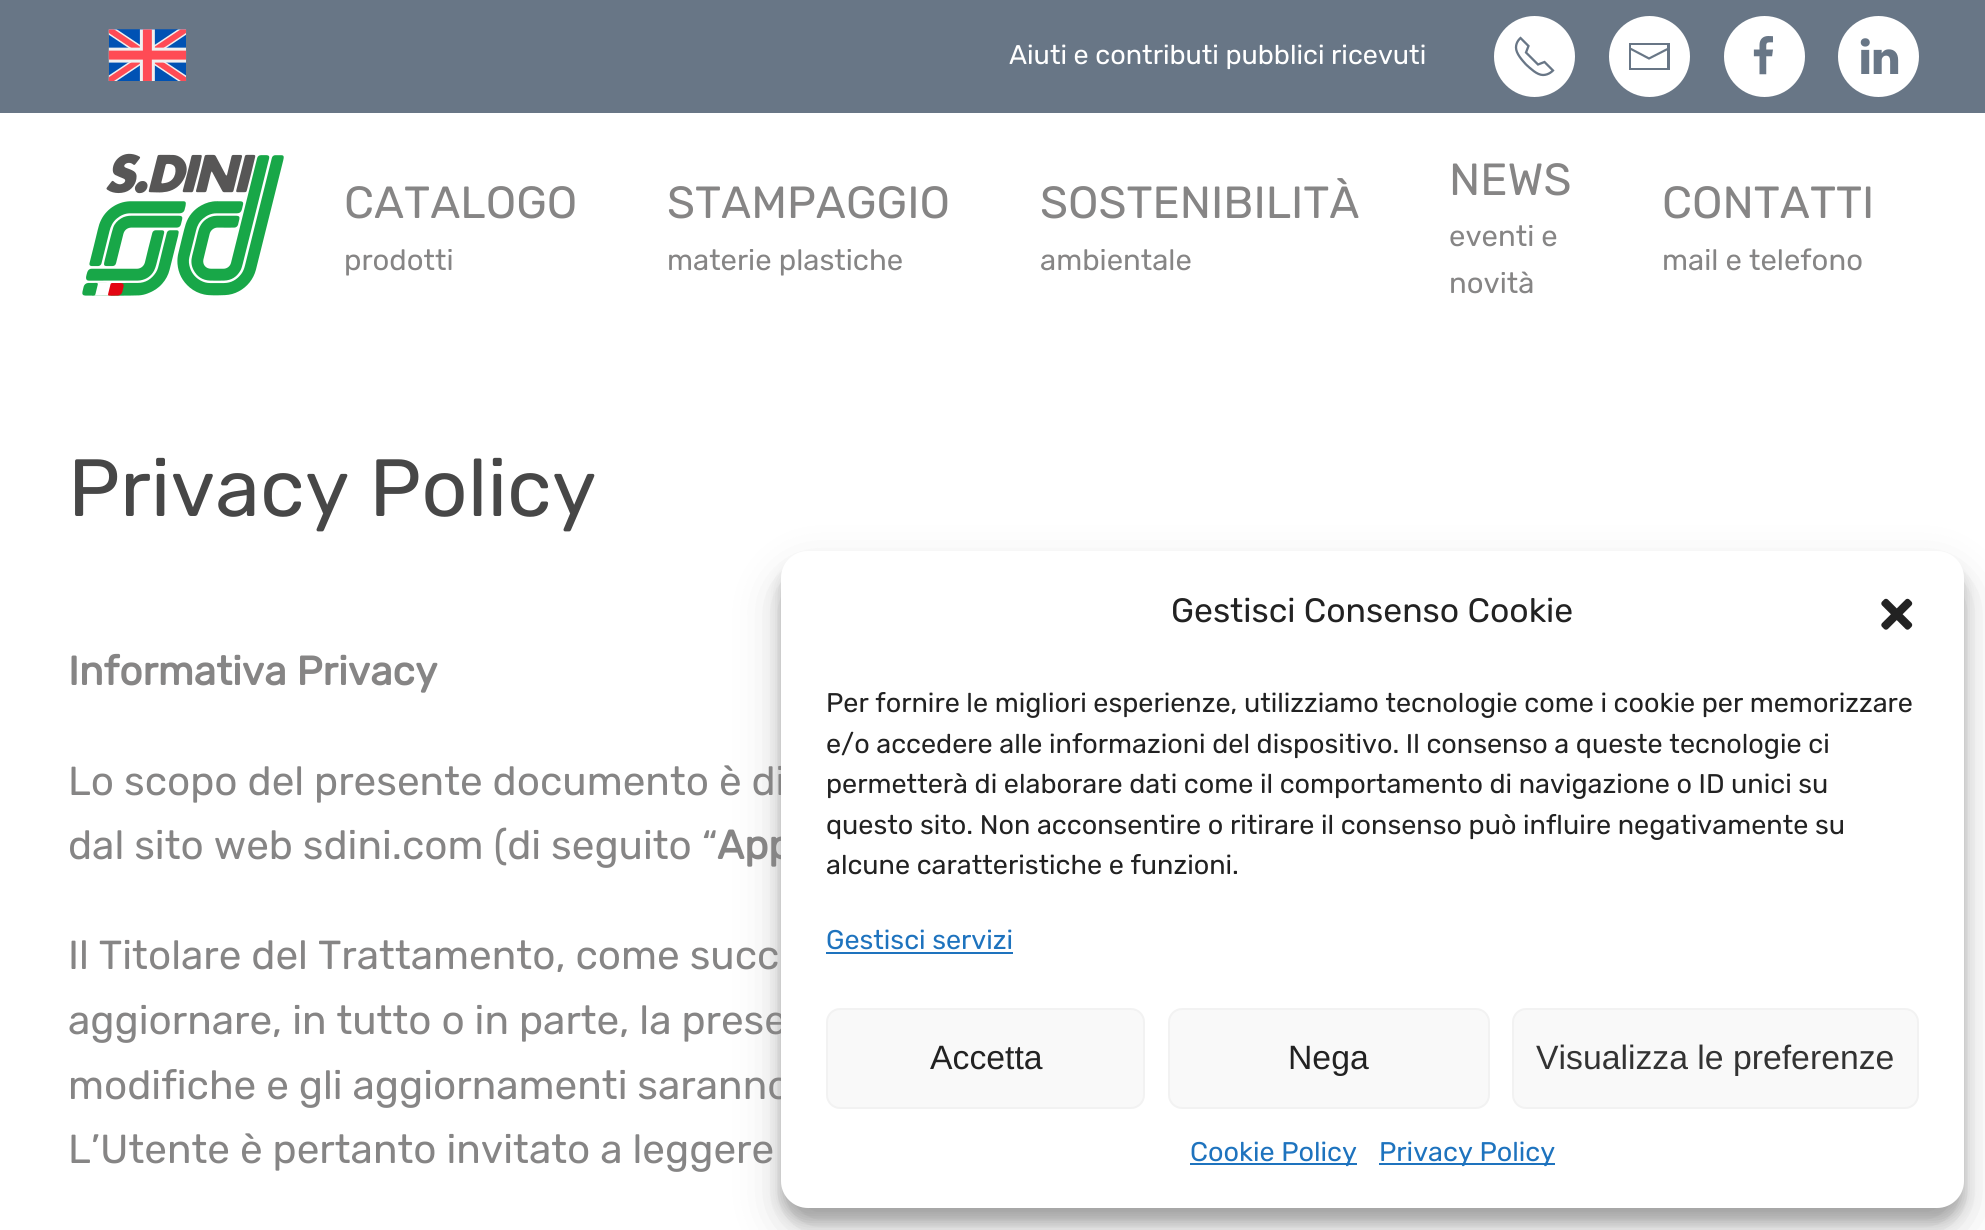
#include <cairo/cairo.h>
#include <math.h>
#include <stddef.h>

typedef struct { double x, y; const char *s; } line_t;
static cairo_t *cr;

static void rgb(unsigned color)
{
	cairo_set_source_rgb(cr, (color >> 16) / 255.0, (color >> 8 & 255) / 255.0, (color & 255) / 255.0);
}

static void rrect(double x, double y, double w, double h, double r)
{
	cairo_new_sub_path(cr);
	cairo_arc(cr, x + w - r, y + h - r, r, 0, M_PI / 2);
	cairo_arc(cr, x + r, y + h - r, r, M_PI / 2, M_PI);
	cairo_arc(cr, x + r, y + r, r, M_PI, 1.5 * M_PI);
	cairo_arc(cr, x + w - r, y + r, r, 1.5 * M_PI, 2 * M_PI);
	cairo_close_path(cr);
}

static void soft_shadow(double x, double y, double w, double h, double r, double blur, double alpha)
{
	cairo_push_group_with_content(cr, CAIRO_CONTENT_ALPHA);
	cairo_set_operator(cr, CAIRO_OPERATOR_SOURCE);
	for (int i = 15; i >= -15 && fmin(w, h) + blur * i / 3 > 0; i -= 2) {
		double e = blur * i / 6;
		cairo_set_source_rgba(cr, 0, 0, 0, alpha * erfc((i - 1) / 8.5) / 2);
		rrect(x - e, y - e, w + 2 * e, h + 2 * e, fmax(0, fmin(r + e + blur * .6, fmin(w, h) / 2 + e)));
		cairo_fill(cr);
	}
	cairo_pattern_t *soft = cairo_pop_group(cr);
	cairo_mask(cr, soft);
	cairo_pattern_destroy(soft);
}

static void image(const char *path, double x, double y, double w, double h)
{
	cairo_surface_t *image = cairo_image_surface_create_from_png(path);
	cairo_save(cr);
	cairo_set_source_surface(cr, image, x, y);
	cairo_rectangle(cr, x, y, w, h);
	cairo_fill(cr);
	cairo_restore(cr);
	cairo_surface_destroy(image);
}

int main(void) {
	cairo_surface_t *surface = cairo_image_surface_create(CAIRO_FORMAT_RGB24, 1985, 1230);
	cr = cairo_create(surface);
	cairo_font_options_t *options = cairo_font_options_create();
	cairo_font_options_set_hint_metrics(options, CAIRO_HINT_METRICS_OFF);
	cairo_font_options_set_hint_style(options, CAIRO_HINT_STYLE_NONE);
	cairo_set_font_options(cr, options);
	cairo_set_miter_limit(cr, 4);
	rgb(0xffffff);
	cairo_paint(cr);
	rgb(0x687686);
	cairo_rectangle(cr, 0, 0, 1985, 113);
	cairo_fill(cr);
	image("img/1.png", 108, 29, 79, 52);
	rgb(0xffffff);
	cairo_arc(cr, 1534.5, 56.5, 40.5, 0, 2 * M_PI);
	cairo_fill(cr);
	cairo_new_path(cr);
	cairo_move_to(cr, 1526, 64.5);
	cairo_curve_to(cr, 1530.5, 68.5, 1537, 75, 1543, 75);
	cairo_curve_to(cr, 1549, 75, 1553, 70.5, 1553, 70.5);
	cairo_line_to(cr, 1544.5, 62);
	cairo_line_to(cr, 1538, 64.5);
	cairo_line_to(cr, 1526, 52.5);
	cairo_line_to(cr, 1528.5, 46);
	cairo_line_to(cr, 1520.5, 38);
	cairo_curve_to(cr, 1520.5, 38, 1516, 41.5, 1516, 47.5);
	cairo_curve_to(cr, 1516, 53.5, 1522, 60, 1526, 64.5);
	rgb(0x687686);
	cairo_set_line_width(cr, 2.3);
	cairo_stroke(cr);
	rgb(0xffffff);
	cairo_arc(cr, 1649.5, 56.5, 40.5, 0, 2 * M_PI);
	cairo_fill(cr);
	cairo_new_path(cr);
	cairo_move_to(cr, 1630, 48.5);
	cairo_line_to(cr, 1649, 58.5);
	cairo_line_to(cr, 1668.5, 48.5);
	rgb(0x687686);
	cairo_set_line_width(cr, 2.2);
	cairo_stroke(cr);
	cairo_new_path(cr);
	cairo_move_to(cr, 1629, 43);
	cairo_line_to(cr, 1629, 70);
	cairo_line_to(cr, 1670, 70);
	cairo_line_to(cr, 1670, 43);
	cairo_close_path(cr);
	cairo_move_to(cr, 1667, 68);
	cairo_line_to(cr, 1631, 68);
	cairo_line_to(cr, 1631, 45);
	cairo_line_to(cr, 1667, 45);
	cairo_close_path(cr);
	cairo_fill(cr);
	rgb(0xffffff);
	cairo_arc(cr, 1764.5, 56.5, 40.5, 0, 2 * M_PI);
	cairo_fill(cr);
	image("img/2.png", 1753, 36, 20, 39);
	cairo_arc(cr, 1878.5, 56.5, 40.5, 0, 2 * M_PI);
	cairo_fill(cr);
	image("img/3.png", 1860, 38, 39, 36);
	image("img/4.png", 82, 153, 202, 143);
	rgb(0x000000);
	soft_shadow(781, 565, 1183, 657, 27, 7, 0.23);
	soft_shadow(781, 574, 1183, 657, 27, 22.5, 0.19);
	cairo_select_font_face(cr, "Rubik Light", CAIRO_FONT_SLANT_NORMAL, CAIRO_FONT_WEIGHT_NORMAL);
	cairo_set_font_size(cr, 27);
	rgb(0xffffff);
	cairo_move_to(cr, 1009, 64);
	cairo_show_text(cr, "Aiuti e contributi pubblici ricevuti");
	cairo_set_font_size(cr, 45);
	rgb(0x868585);
	cairo_move_to(cr, 344, 218);
	cairo_show_text(cr, "CATALOGO");
	cairo_set_font_size(cr, 29.25);
	cairo_move_to(cr, 344, 270);
	cairo_show_text(cr, "prodotti");
	cairo_set_font_size(cr, 45);
	cairo_move_to(cr, 667, 218);
	cairo_show_text(cr, "STAMPAGGIO");
	cairo_set_font_size(cr, 29.25);
	cairo_move_to(cr, 667, 270);
	cairo_show_text(cr, "materie plastiche");
	cairo_set_font_size(cr, 45);
	cairo_move_to(cr, 1040, 218);
	cairo_show_text(cr, "SOSTENIBILITÀ");
	cairo_set_font_size(cr, 29.25);
	cairo_move_to(cr, 1040, 270);
	cairo_show_text(cr, "ambientale");
	cairo_set_font_size(cr, 45);
	cairo_move_to(cr, 1449, 195);
	cairo_show_text(cr, "NEWS");
	cairo_set_font_size(cr, 29.25);
	cairo_move_to(cr, 1449, 246);
	cairo_show_text(cr, "eventi e");
	cairo_move_to(cr, 1449, 293);
	cairo_show_text(cr, "novità");
	cairo_set_font_size(cr, 45);
	cairo_move_to(cr, 1662, 218);
	cairo_show_text(cr, "CONTATTI");
	cairo_set_font_size(cr, 29.25);
	cairo_move_to(cr, 1662, 270);
	cairo_show_text(cr, "mail e telefono");
	cairo_set_font_size(cr, 81);
	rgb(0x474747);
	cairo_move_to(cr, 68, 516);
	cairo_show_text(cr, "Privacy Policy");
	cairo_select_font_face(cr, "Rubik", CAIRO_FONT_SLANT_NORMAL, CAIRO_FONT_WEIGHT_BOLD);
	cairo_set_font_size(cr, 40.5);
	rgb(0x868585);
	cairo_move_to(cr, 68, 685);
	cairo_show_text(cr, "Informativa Privacy");
	cairo_select_font_face(cr, "Rubik Light", CAIRO_FONT_SLANT_NORMAL, CAIRO_FONT_WEIGHT_NORMAL);
	cairo_move_to(cr, 68, 795);
	cairo_show_text(cr, "Lo scopo del presente documento è di");
	cairo_move_to(cr, 68, 859);
	cairo_show_text(cr, "dal sito web sdini.com (di seguito “");
	cairo_select_font_face(cr, "Rubik", CAIRO_FONT_SLANT_NORMAL, CAIRO_FONT_WEIGHT_BOLD);
	cairo_move_to(cr, 717, 859);
	cairo_show_text(cr, "App");
	cairo_select_font_face(cr, "Rubik Light", CAIRO_FONT_SLANT_NORMAL, CAIRO_FONT_WEIGHT_NORMAL);
	{
		static const line_t items[] = {
			{68, 969, "Il Titolare del Trattamento, come succ"},
			{68, 1034, "aggiornare, in tutto o in parte, la prese"},
			{68, 1099, "modifiche e gli aggiornamenti saranno"},
			{68, 1163, "L’Utente è pertanto invitato a leggere"},
		};
		for (size_t i = 0; i < sizeof items / sizeof *items; i++) {
			cairo_move_to(cr, items[i].x, items[i].y);
			cairo_show_text(cr, items[i].s);
		}
	}
	rgb(0xffffff);
	rrect(781, 551, 1183, 657, 27);
	cairo_fill(cr);
	cairo_set_font_size(cr, 33.75);
	rgb(0x222222);
	cairo_move_to(cr, 1171, 622);
	cairo_show_text(cr, "Gestisci Consenso Cookie");
	image("img/5.png", 1881, 598, 32, 32);
	cairo_set_font_size(cr, 27);
	{
		static const line_t items[] = {
			{826, 712, "Per fornire le migliori esperienze, utilizziamo tecnologie come i cookie per memorizzare"},
			{826, 753, "e/o accedere alle informazioni del dispositivo. Il consenso a queste tecnologie ci"},
			{826, 793, "permetterà di elaborare dati come il comportamento di navigazione o ID unici su"},
			{826, 834, "questo sito. Non acconsentire o ritirare il consenso può influire negativamente su"},
			{826, 874, "alcune caratteristiche e funzioni."},
		};
		for (size_t i = 0; i < sizeof items / sizeof *items; i++) {
			cairo_move_to(cr, items[i].x, items[i].y);
			cairo_show_text(cr, items[i].s);
		}
	}
	rgb(0x1e73be);
	cairo_move_to(cr, 826, 949);
	cairo_show_text(cr, "Gestisci servizi");
	cairo_rectangle(cr, 826, 952, 187, 2);
	cairo_fill(cr);
	rgb(0xf9f9f9);
	rrect(827, 1009, 317, 99, 13);
	cairo_fill_preserve(cr);
	rgb(0xf2f2f2);
	cairo_set_line_width(cr, 2);
	cairo_stroke(cr);
	cairo_select_font_face(cr, "Liberation Sans", CAIRO_FONT_SLANT_NORMAL, CAIRO_FONT_WEIGHT_NORMAL);
	cairo_set_font_size(cr, 33.75);
	rgb(0x222222);
	cairo_move_to(cr, 930, 1069);
	cairo_show_text(cr, "Accetta");
	rgb(0xf9f9f9);
	rrect(1169, 1009, 320, 99, 13);
	cairo_fill_preserve(cr);
	rgb(0xf2f2f2);
	cairo_stroke(cr);
	rgb(0x222222);
	cairo_move_to(cr, 1288, 1069);
	cairo_show_text(cr, "Nega");
	rgb(0xf9f9f9);
	rrect(1513, 1009, 405, 99, 13);
	cairo_fill_preserve(cr);
	rgb(0xf2f2f2);
	cairo_stroke(cr);
	rgb(0x333333);
	cairo_move_to(cr, 1536, 1069);
	cairo_show_text(cr, "Visualizza le preferenze");
	rgb(0x1e73be);
	cairo_rectangle(cr, 1190, 1163, 167, 2);
	cairo_fill(cr);
	cairo_select_font_face(cr, "Rubik Light", CAIRO_FONT_SLANT_NORMAL, CAIRO_FONT_WEIGHT_NORMAL);
	cairo_set_font_size(cr, 27);
	cairo_move_to(cr, 1190, 1161);
	cairo_show_text(cr, "Cookie Policy");
	cairo_rectangle(cr, 1379, 1163, 176, 2);
	cairo_fill(cr);
	cairo_move_to(cr, 1379, 1161);
	cairo_show_text(cr, "Privacy Policy");
	cairo_surface_write_to_png(surface, "page.png");
	cairo_font_options_destroy(options);
	cairo_destroy(cr);
	cairo_surface_destroy(surface);
	return 0;
}
